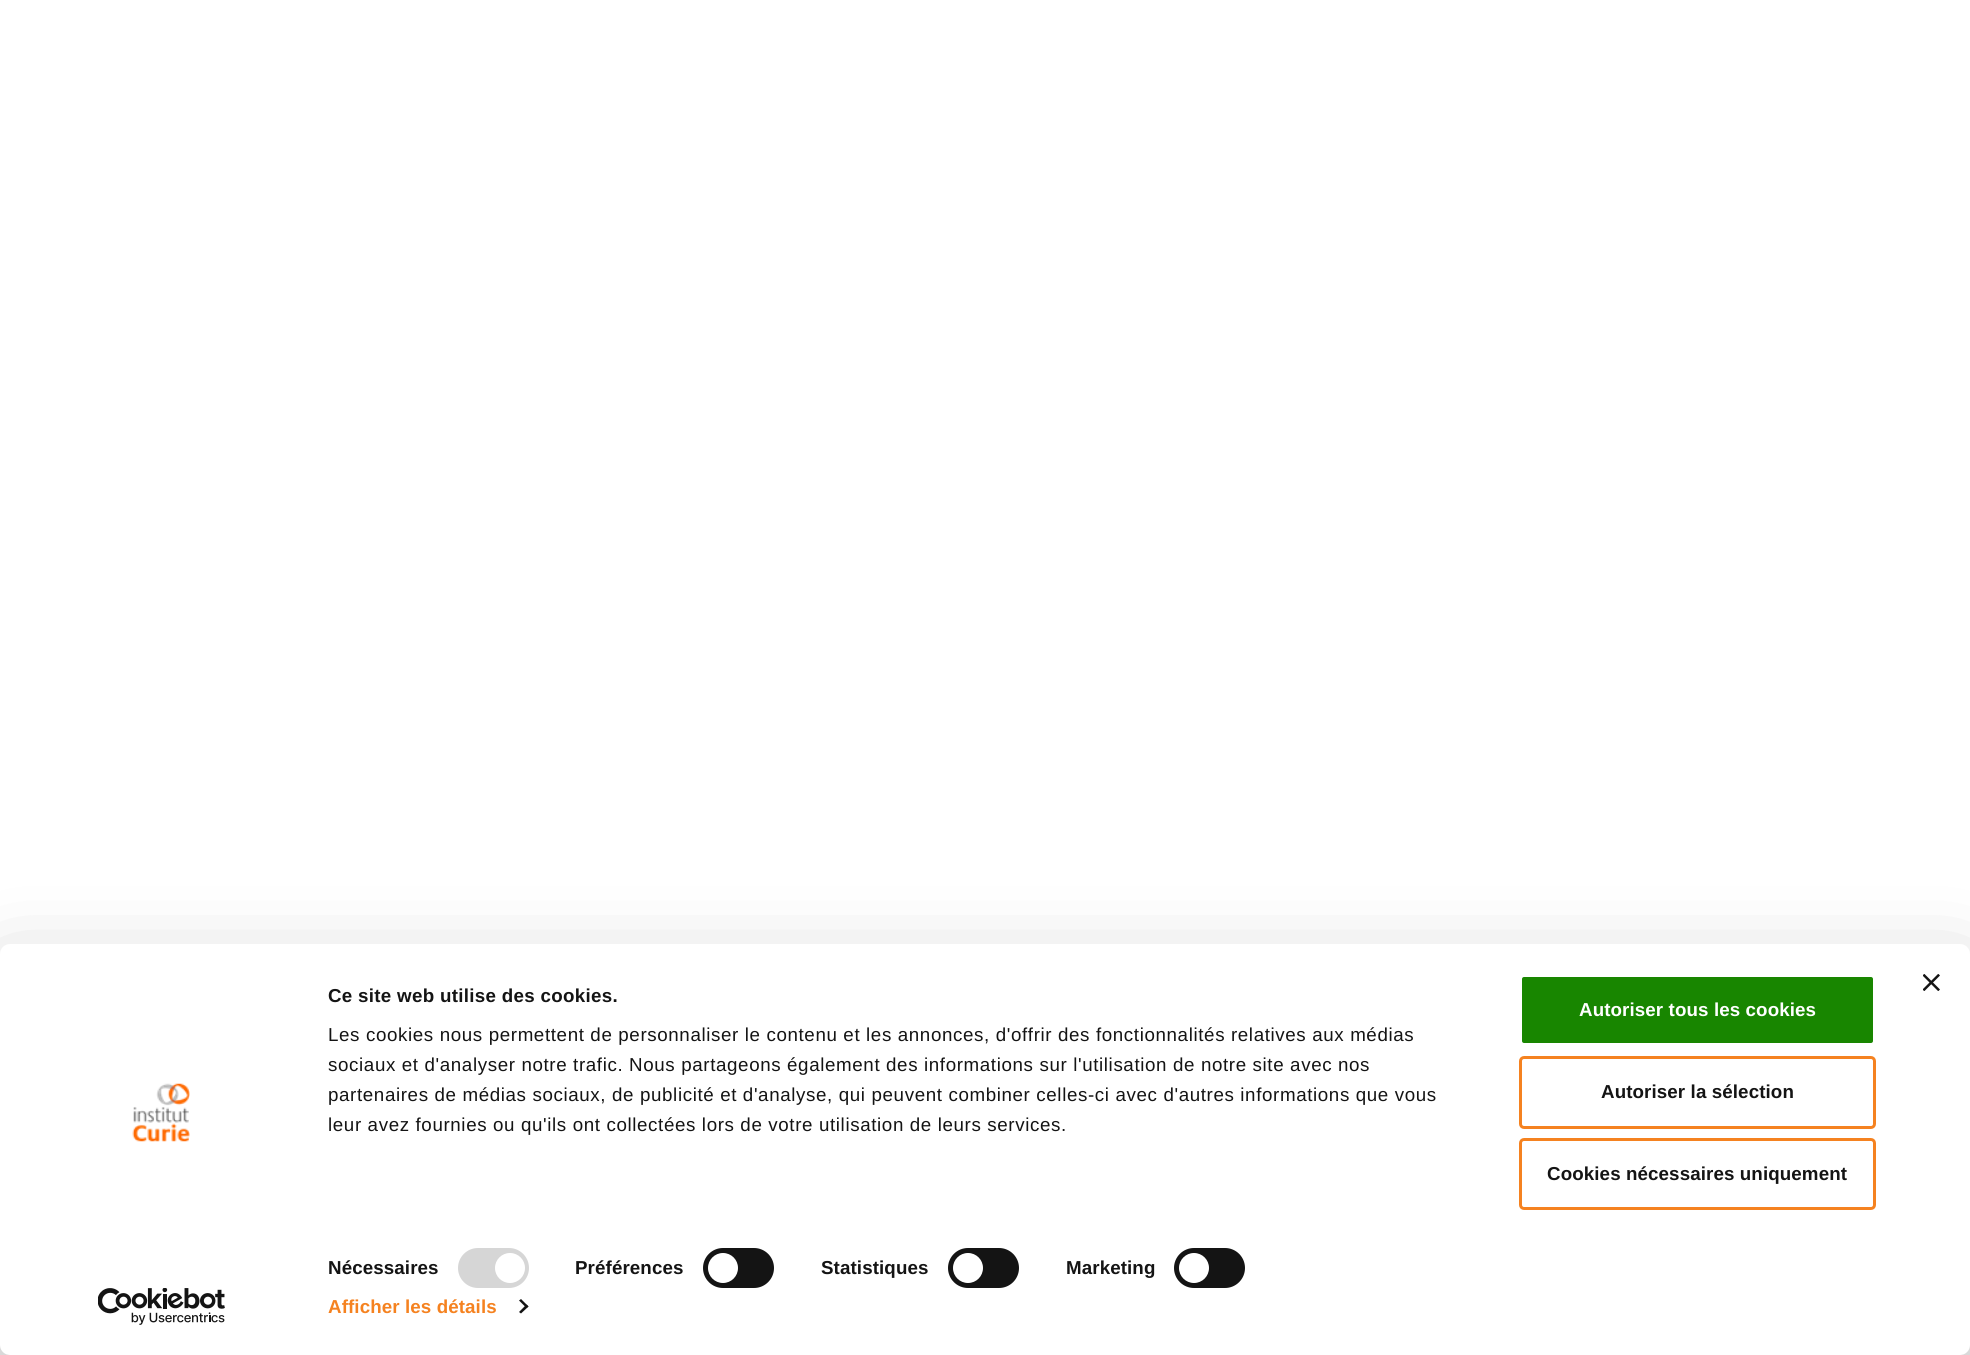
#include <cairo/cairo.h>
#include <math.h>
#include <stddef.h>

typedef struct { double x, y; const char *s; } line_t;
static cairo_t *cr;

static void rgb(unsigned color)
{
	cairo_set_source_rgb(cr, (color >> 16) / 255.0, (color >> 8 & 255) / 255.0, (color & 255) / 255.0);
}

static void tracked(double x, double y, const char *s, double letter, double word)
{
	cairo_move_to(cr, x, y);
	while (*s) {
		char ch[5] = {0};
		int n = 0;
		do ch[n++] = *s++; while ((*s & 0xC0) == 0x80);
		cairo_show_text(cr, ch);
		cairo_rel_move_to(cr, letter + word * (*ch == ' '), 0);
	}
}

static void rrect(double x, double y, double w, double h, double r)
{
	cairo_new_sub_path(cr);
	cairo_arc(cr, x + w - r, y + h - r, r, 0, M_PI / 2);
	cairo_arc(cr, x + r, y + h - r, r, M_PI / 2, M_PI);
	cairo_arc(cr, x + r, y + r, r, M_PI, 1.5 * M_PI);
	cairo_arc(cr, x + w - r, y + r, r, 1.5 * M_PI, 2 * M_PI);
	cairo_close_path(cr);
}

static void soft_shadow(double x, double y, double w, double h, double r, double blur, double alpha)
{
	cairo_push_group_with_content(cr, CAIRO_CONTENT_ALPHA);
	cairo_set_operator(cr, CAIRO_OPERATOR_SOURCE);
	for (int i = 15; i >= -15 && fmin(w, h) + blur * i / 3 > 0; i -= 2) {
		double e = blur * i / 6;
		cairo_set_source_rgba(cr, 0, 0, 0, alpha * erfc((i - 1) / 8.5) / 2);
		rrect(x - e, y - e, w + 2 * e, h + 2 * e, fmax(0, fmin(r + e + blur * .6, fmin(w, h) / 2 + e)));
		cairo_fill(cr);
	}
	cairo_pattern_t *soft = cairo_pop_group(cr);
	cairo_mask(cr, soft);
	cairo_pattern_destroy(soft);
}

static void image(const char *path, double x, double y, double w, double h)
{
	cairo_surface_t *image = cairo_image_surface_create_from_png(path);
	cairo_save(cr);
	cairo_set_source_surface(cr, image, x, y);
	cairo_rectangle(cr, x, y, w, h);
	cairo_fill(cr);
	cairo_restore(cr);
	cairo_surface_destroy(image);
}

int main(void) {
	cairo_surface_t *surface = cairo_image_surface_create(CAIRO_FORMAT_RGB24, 1970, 1355);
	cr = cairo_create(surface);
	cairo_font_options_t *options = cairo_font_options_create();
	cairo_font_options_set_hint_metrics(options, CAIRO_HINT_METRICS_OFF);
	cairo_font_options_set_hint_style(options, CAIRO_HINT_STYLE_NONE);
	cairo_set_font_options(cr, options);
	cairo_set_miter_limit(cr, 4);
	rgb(0xffffff);
	cairo_paint(cr);
	rgb(0x000000);
	soft_shadow(0, 981, 1970, 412, 10, 44, 0.3);
	rgb(0xffffff);
	rrect(0, 944, 1970, 411, 10);
	cairo_fill(cr);
	image("img/1.png", 1923, 974, 17, 17);
	image("img/2.png", 132, 1083, 58, 59);
	image("img/3.png", 98, 1288, 127, 37);
	rgb(0xd6d6d6);
	rrect(458, 1248, 71, 40, 20);
	cairo_fill(cr);
	rgb(0xffffff);
	cairo_arc(cr, 510, 1268, 15, 0, 2 * M_PI);
	cairo_fill(cr);
	rgb(0x141414);
	rrect(703, 1248, 71, 40, 20);
	cairo_fill(cr);
	rgb(0xffffff);
	cairo_arc(cr, 723, 1268, 15, 0, 2 * M_PI);
	cairo_fill(cr);
	rgb(0x141414);
	rrect(948, 1248, 71, 40, 20);
	cairo_fill(cr);
	rgb(0xffffff);
	cairo_arc(cr, 968, 1268, 15, 0, 2 * M_PI);
	cairo_fill(cr);
	rgb(0x141414);
	rrect(1174, 1248, 71, 40, 20);
	cairo_fill(cr);
	rgb(0xffffff);
	cairo_arc(cr, 1194, 1268, 15, 0, 2 * M_PI);
	cairo_fill(cr);
	rgb(0x141414);
	cairo_new_path(cr);
	cairo_move_to(cr, 521, 1299);
	cairo_line_to(cr, 528.5, 1306.5);
	cairo_line_to(cr, 526.5, 1308);
	cairo_line_to(cr, 519, 1300.5);
	cairo_close_path(cr);
	cairo_fill(cr);
	cairo_new_path(cr);
	cairo_move_to(cr, 526.5, 1304.5);
	cairo_line_to(cr, 528.5, 1306.5);
	cairo_line_to(cr, 521, 1313.5);
	cairo_line_to(cr, 519, 1312);
	cairo_close_path(cr);
	cairo_fill(cr);
	rgb(0x188600);
	rrect(1520.5, 975.5, 354, 69, 3.5);
	cairo_fill_preserve(cr);
	rgb(0xffffff);
	cairo_set_line_width(cr, 3);
	cairo_stroke(cr);
	rrect(1520.5, 1057.5, 354, 70, 3.5);
	rgb(0xf58220);
	cairo_stroke(cr);
	rrect(1520.5, 1139.5, 354, 69, 3.5);
	cairo_stroke(cr);
	cairo_select_font_face(cr, "Liberation Sans", CAIRO_FONT_SLANT_NORMAL, CAIRO_FONT_WEIGHT_BOLD);
	cairo_set_font_size(cr, 18.75);
	rgb(0x141414);
	tracked(328, 1002, "Ce site web utilise des cookies.", 0.3, 0);
	cairo_select_font_face(cr, "Liberation Sans", CAIRO_FONT_SLANT_NORMAL, CAIRO_FONT_WEIGHT_NORMAL);
	{
		static const line_t items[] = {
			{328, 1041, "Les cookies nous permettent de personnaliser le contenu et les annonces, d'offrir des fonctionnalités relatives aux médias"},
			{328, 1071, "sociaux et d'analyser notre trafic. Nous partageons également des informations sur l'utilisation de notre site avec nos"},
			{328, 1101, "partenaires de médias sociaux, de publicité et d'analyse, qui peuvent combiner celles-ci avec d'autres informations que vous"},
			{328, 1131, "leur avez fournies ou qu'ils ont collectées lors de votre utilisation de leurs services."},
		};
		for (size_t i = 0; i < sizeof items / sizeof *items; i++) {
			tracked(items[i].x, items[i].y, items[i].s, 0.62, 0);
		}
	}
	cairo_select_font_face(cr, "Liberation Sans", CAIRO_FONT_SLANT_NORMAL, CAIRO_FONT_WEIGHT_BOLD);
	{
		static const line_t items[] = {
			{328, 1274, "Nécessaires"},
			{575, 1274, "Préférences"},
			{821, 1274, "Statistiques"},
			{1066, 1274, "Marketing"},
		};
		for (size_t i = 0; i < sizeof items / sizeof *items; i++) {
			tracked(items[i].x, items[i].y, items[i].s, 0.1, 0);
		}
	}
	rgb(0xf58220);
	tracked(328, 1313, "Afficher les détails", 0.1, 0);
	rgb(0xffffff);
	tracked(1579, 1016, "Autoriser tous les cookies", 0.1, 0);
	rgb(0x141414);
	tracked(1601, 1098, "Autoriser la sélection", 0.1, 0);
	tracked(1547, 1180, "Cookies nécessaires uniquement", 0.1, 0);
	cairo_surface_write_to_png(surface, "page.png");
	cairo_font_options_destroy(options);
	cairo_destroy(cr);
	cairo_surface_destroy(surface);
	return 0;
}
